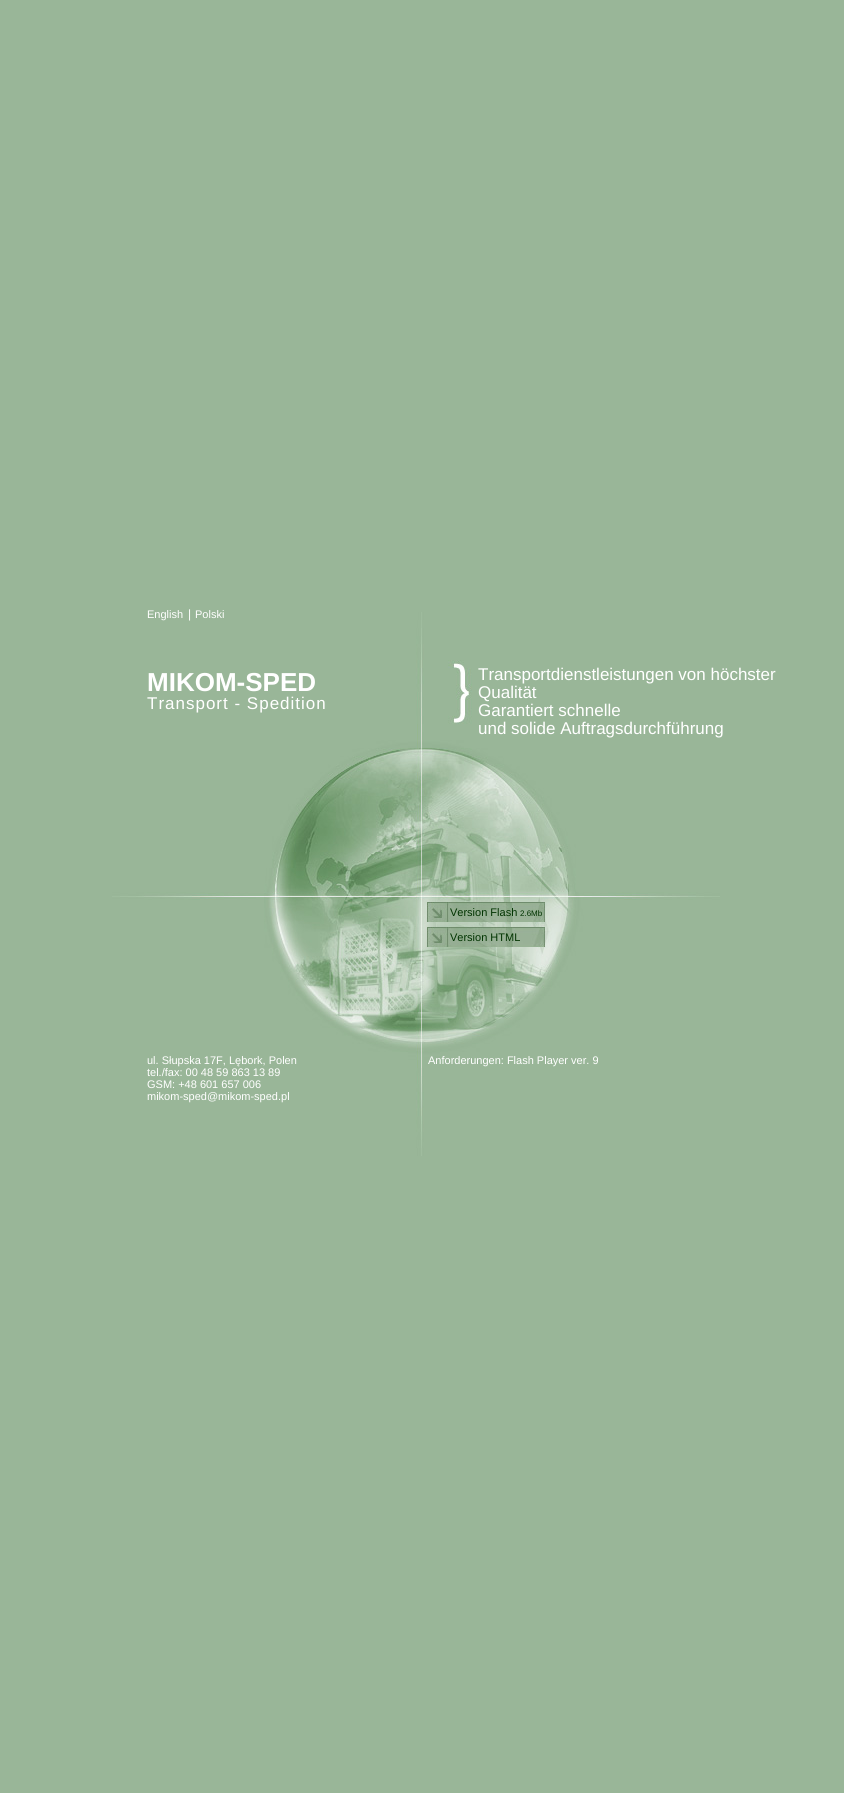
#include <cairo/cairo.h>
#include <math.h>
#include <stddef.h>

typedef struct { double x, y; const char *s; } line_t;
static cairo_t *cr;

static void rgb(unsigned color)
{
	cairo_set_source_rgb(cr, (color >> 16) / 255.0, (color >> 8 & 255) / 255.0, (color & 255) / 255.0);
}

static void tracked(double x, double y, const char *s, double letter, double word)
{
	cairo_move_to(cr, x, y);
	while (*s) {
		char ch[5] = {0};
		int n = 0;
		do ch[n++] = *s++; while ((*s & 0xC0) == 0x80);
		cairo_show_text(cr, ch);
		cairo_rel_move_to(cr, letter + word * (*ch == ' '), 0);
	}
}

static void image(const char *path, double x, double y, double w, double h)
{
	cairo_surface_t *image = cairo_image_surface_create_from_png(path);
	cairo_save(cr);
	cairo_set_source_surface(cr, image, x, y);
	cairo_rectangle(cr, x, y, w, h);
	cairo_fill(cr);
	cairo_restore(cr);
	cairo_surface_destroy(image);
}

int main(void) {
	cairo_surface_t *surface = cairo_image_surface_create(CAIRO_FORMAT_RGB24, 844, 1793);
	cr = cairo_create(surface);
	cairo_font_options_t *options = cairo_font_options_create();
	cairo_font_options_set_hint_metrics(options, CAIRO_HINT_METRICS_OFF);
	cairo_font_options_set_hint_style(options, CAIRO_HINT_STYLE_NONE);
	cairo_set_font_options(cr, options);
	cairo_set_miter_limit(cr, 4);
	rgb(0x99b698);
	cairo_paint(cr);
	image("img/1.png", 112, 612, 608, 544);
	image("img/2.png", 427, 902, 118, 20);
	image("img/2.png", 427, 927, 118, 20);
	cairo_select_font_face(cr, "Liberation Sans", CAIRO_FONT_SLANT_NORMAL, CAIRO_FONT_WEIGHT_NORMAL);
	cairo_set_font_size(cr, 11);
	rgb(0xffffff);
	cairo_move_to(cr, 147, 618);
	cairo_show_text(cr, "English");
	cairo_set_font_size(cr, 12);
	cairo_move_to(cr, 188, 618);
	cairo_show_text(cr, "|");
	cairo_set_font_size(cr, 11);
	cairo_move_to(cr, 195, 618);
	cairo_show_text(cr, "Polski");
	cairo_select_font_face(cr, "Liberation Sans", CAIRO_FONT_SLANT_NORMAL, CAIRO_FONT_WEIGHT_BOLD);
	cairo_set_font_size(cr, 26);
	cairo_move_to(cr, 147, 691);
	cairo_show_text(cr, "MIKOM-SPED");
	cairo_select_font_face(cr, "Liberation Sans", CAIRO_FONT_SLANT_NORMAL, CAIRO_FONT_WEIGHT_NORMAL);
	cairo_set_font_size(cr, 17);
	tracked(147, 709, "Transport - Spedition", 1, 0);
	{
		static const line_t items[] = {
			{478, 680, "Transportdienstleistungen von höchster"},
			{478, 698, "Qualität"},
			{478, 716, "Garantiert schnelle"},
			{478, 734, "und solide Auftragsdurchführung"},
		};
		for (size_t i = 0; i < sizeof items / sizeof *items; i++) {
			cairo_move_to(cr, items[i].x, items[i].y);
			cairo_show_text(cr, items[i].s);
		}
	}
	cairo_set_font_size(cr, 11);
	rgb(0x003300);
	cairo_move_to(cr, 450, 916);
	cairo_show_text(cr, "Version Flash");
	cairo_set_font_size(cr, 8);
	cairo_move_to(cr, 520, 916);
	cairo_show_text(cr, "2.6Mb");
	cairo_set_font_size(cr, 11);
	cairo_move_to(cr, 450, 941);
	cairo_show_text(cr, "Version HTML");
	rgb(0xffffff);
	{
		static const line_t items[] = {
			{147, 1064, "ul. Słupska 17F, Lębork, Polen"},
			{147, 1076, "tel./fax: 00 48 59 863 13 89"},
			{147, 1088, "GSM: +48 601 657 006"},
			{147, 1100, "mikom-sped@mikom-sped.pl"},
			{428, 1064, "Anforderungen: Flash Player ver. 9"},
		};
		for (size_t i = 0; i < sizeof items / sizeof *items; i++) {
			cairo_move_to(cr, items[i].x, items[i].y);
			cairo_show_text(cr, items[i].s);
		}
	}
	cairo_surface_write_to_png(surface, "page.png");
	cairo_font_options_destroy(options);
	cairo_destroy(cr);
	cairo_surface_destroy(surface);
	return 0;
}
